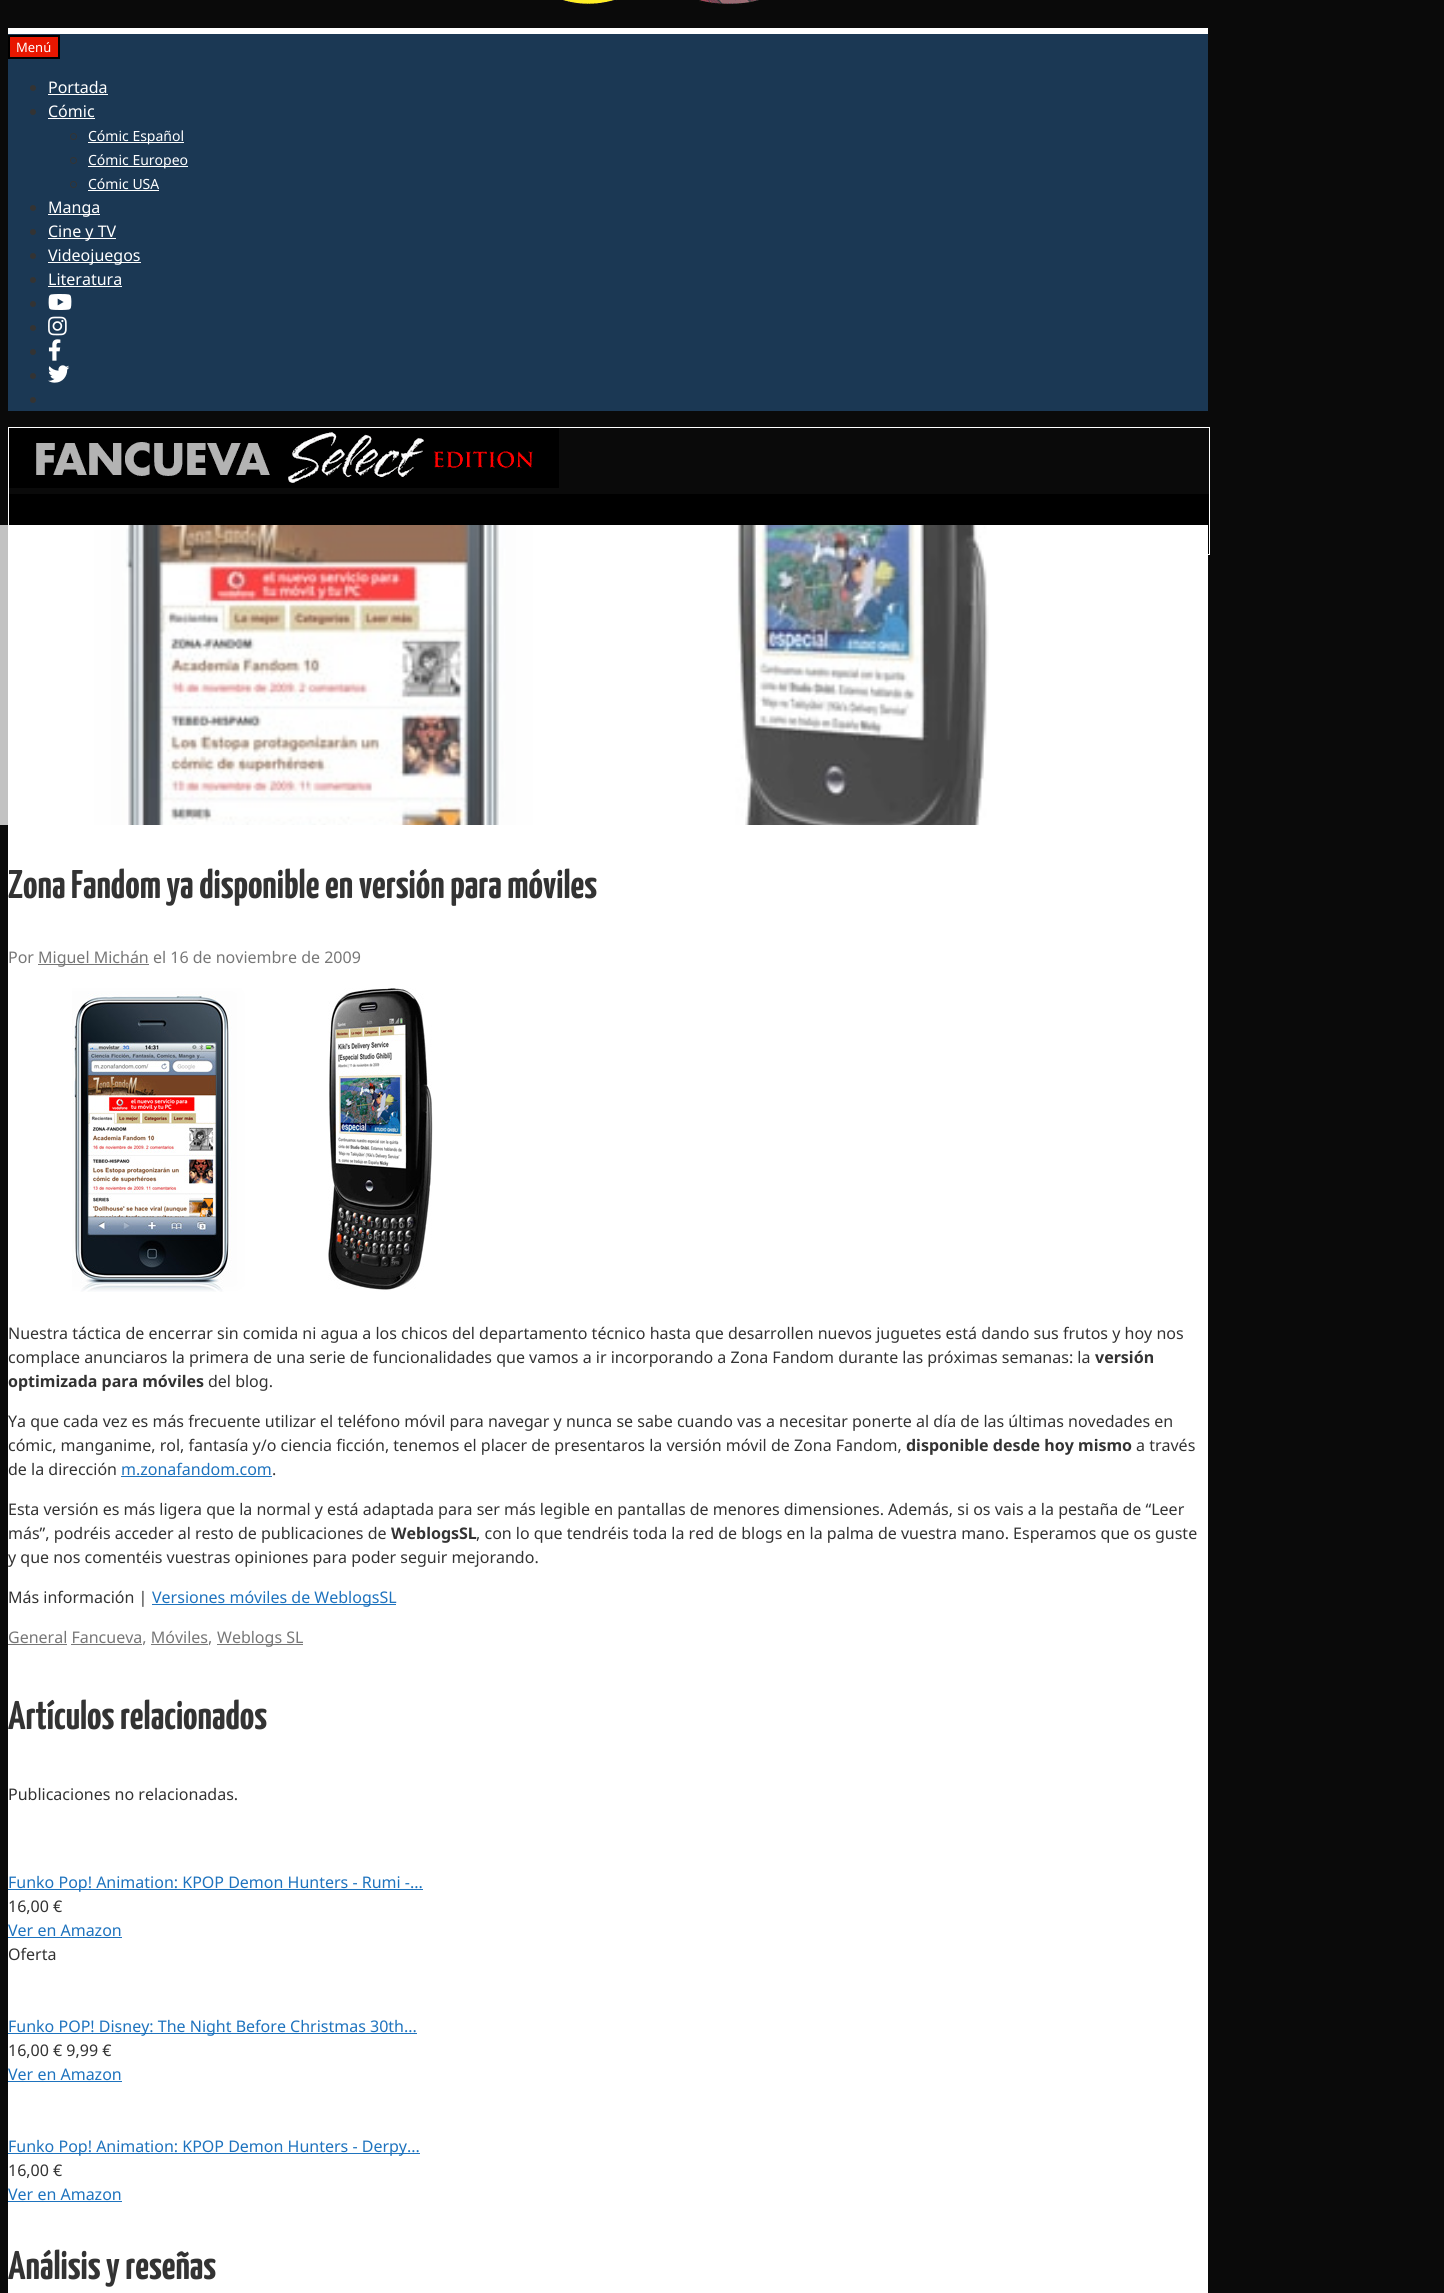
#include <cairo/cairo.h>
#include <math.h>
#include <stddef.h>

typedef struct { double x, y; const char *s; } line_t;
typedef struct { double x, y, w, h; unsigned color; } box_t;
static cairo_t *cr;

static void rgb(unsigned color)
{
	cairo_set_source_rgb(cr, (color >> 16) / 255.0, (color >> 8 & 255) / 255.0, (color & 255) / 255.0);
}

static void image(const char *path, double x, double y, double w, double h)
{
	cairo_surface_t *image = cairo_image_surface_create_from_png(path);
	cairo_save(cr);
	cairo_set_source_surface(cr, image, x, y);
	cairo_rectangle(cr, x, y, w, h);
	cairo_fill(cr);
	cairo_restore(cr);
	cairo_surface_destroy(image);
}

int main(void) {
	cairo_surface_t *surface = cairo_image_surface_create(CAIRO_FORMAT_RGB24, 1444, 2293);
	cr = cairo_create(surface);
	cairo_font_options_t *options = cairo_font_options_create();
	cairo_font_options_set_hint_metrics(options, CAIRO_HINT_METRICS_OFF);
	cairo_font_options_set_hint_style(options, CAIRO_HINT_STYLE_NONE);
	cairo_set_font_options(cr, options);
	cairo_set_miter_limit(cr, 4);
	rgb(0x0a0a0a);
	cairo_paint(cr);
	rgb(0xffffff);
	cairo_rectangle(cr, 8, 28, 1200, 6);
	cairo_fill(cr);
	image("img/1.png", 8, 0, 1200, 28);
	rgb(0x1b3854);
	cairo_rectangle(cr, 8, 34, 1200, 377);
	cairo_fill(cr);
	rgb(0xe81700);
	cairo_rectangle(cr, 9, 36, 50, 22);
	cairo_fill_preserve(cr);
	rgb(0x000000);
	cairo_stroke(cr);
	rgb(0x333333);
	cairo_arc(cr, 33, 88, 3, 0, 2 * M_PI);
	cairo_fill(cr);
	rgb(0xffffff);
	cairo_rectangle(cr, 48, 94, 60, 1);
	cairo_fill(cr);
	rgb(0x333333);
	cairo_arc(cr, 33, 112, 3, 0, 2 * M_PI);
	cairo_fill(cr);
	rgb(0xffffff);
	cairo_rectangle(cr, 48, 118, 47, 1);
	cairo_fill(cr);
	cairo_arc(cr, 73.5, 136.5, 3, 0, 2 * M_PI);
	rgb(0x333333);
	cairo_set_line_width(cr, 1);
	cairo_stroke(cr);
	rgb(0xffffff);
	cairo_rectangle(cr, 88, 142, 96, 1);
	cairo_fill(cr);
	cairo_arc(cr, 73.5, 160.5, 3, 0, 2 * M_PI);
	rgb(0x333333);
	cairo_stroke(cr);
	rgb(0xffffff);
	cairo_rectangle(cr, 88, 166, 100, 1);
	cairo_fill(cr);
	cairo_arc(cr, 73.5, 184.5, 3, 0, 2 * M_PI);
	rgb(0x333333);
	cairo_stroke(cr);
	rgb(0xffffff);
	cairo_rectangle(cr, 88, 190, 71, 1);
	cairo_fill(cr);
	rgb(0x333333);
	cairo_arc(cr, 33, 208, 3, 0, 2 * M_PI);
	cairo_fill(cr);
	rgb(0xffffff);
	cairo_rectangle(cr, 48, 214, 52, 1);
	cairo_fill(cr);
	rgb(0x333333);
	cairo_arc(cr, 33, 232, 3, 0, 2 * M_PI);
	cairo_fill(cr);
	rgb(0xffffff);
	cairo_rectangle(cr, 48, 238, 68, 1);
	cairo_fill(cr);
	rgb(0x333333);
	cairo_arc(cr, 33, 256, 3, 0, 2 * M_PI);
	cairo_fill(cr);
	rgb(0xffffff);
	cairo_rectangle(cr, 48, 262, 93, 1);
	cairo_fill(cr);
	rgb(0x333333);
	cairo_arc(cr, 33, 280, 3, 0, 2 * M_PI);
	cairo_fill(cr);
	rgb(0xffffff);
	cairo_rectangle(cr, 48, 286, 74, 1);
	cairo_fill(cr);
	rgb(0x333333);
	cairo_arc(cr, 33, 304, 3, 0, 2 * M_PI);
	cairo_fill(cr);
	image("img/2.png", 48, 294, 24, 16);
	cairo_arc(cr, 33, 328, 3, 0, 2 * M_PI);
	cairo_fill(cr);
	image("img/3.png", 48, 316, 19, 20);
	cairo_arc(cr, 33, 352, 3, 0, 2 * M_PI);
	cairo_fill(cr);
	image("img/4.png", 48, 339, 13, 22);
	cairo_arc(cr, 33, 376, 3, 0, 2 * M_PI);
	cairo_fill(cr);
	image("img/5.png", 48, 365, 22, 18);
	cairo_arc(cr, 33, 400, 3, 0, 2 * M_PI);
	cairo_fill(cr);
	cairo_rectangle(cr, 8.5, 427.5, 1201, 127);
	rgb(0xffffff);
	cairo_stroke(cr);
	image("img/6.png", 9, 428, 550, 60);
	rgb(0x000000);
	cairo_rectangle(cr, 9, 494, 1200, 60);
	cairo_fill(cr);
	rgb(0xffffff);
	cairo_rectangle(cr, 8, 525, 1200, 1768);
	cairo_fill(cr);
	image("img/7.png", 0, 525, 989, 300);
	rgb(0x777777);
	cairo_rectangle(cr, 38, 964, 111, 1);
	cairo_fill(cr);
	image("img/8.png", 72, 988, 361, 304);
	{
		static const box_t items[] = {
			{121, 1476, 151, 1, 0x1e73be},
			{152, 1604, 244, 1, 0x1e73be},
			{8, 1644, 59, 1, 0x777777},
			{71, 1644, 71, 1, 0x777777},
			{151, 1644, 57, 1, 0x777777},
			{217, 1644, 86, 1, 0x777777},
			{8, 1889, 415, 1, 0x1e73be},
			{8, 1937, 114, 1, 0x1e73be},
			{8, 2033, 409, 1, 0x1e73be},
			{8, 2081, 114, 1, 0x1e73be},
			{8, 2153, 412, 1, 0x1e73be},
			{8, 2201, 114, 1, 0x1e73be},
		};
		for (size_t i = 0; i < sizeof items / sizeof *items; i++) {
			rgb(items[i].color);
			cairo_rectangle(cr, items[i].x, items[i].y, items[i].w, items[i].h);
			cairo_fill(cr);
		}
	}
	cairo_select_font_face(cr, "Noto Sans", CAIRO_FONT_SLANT_NORMAL, CAIRO_FONT_WEIGHT_NORMAL);
	cairo_set_font_size(cr, 13);
	rgb(0xffffff);
	cairo_move_to(cr, 16, 52);
	cairo_show_text(cr, "Menú");
	cairo_set_font_size(cr, 16);
	cairo_move_to(cr, 48, 93);
	cairo_show_text(cr, "Portada");
	cairo_move_to(cr, 48, 117);
	cairo_show_text(cr, "Cómic");
	cairo_set_font_size(cr, 14);
	{
		static const line_t items[] = {
			{88, 141, "Cómic Español"},
			{88, 165, "Cómic Europeo"},
			{88, 189, "Cómic USA"},
		};
		for (size_t i = 0; i < sizeof items / sizeof *items; i++) {
			cairo_move_to(cr, items[i].x, items[i].y);
			cairo_show_text(cr, items[i].s);
		}
	}
	cairo_set_font_size(cr, 16);
	{
		static const line_t items[] = {
			{48, 213, "Manga"},
			{48, 237, "Cine y TV"},
			{48, 261, "Videojuegos"},
			{48, 285, "Literatura"},
		};
		for (size_t i = 0; i < sizeof items / sizeof *items; i++) {
			cairo_move_to(cr, items[i].x, items[i].y);
			cairo_show_text(cr, items[i].s);
		}
	}
	cairo_select_font_face(cr, "Yanone Kaffeesatz", CAIRO_FONT_SLANT_NORMAL, CAIRO_FONT_WEIGHT_BOLD);
	cairo_set_font_size(cr, 40);
	rgb(0x333333);
	cairo_move_to(cr, 8, 898);
	cairo_show_text(cr, "Zona Fandom ya disponible en versión para móviles");
	cairo_select_font_face(cr, "Noto Sans", CAIRO_FONT_SLANT_NORMAL, CAIRO_FONT_WEIGHT_NORMAL);
	cairo_set_font_size(cr, 16);
	rgb(0x777777);
	cairo_move_to(cr, 8, 963);
	cairo_show_text(cr, "Por");
	cairo_move_to(cr, 38, 963);
	cairo_show_text(cr, "Miguel Michán el 16 de noviembre de 2009");
	rgb(0x333333);
	cairo_move_to(cr, 8, 1339);
	cairo_show_text(cr, "Nuestra táctica de encerrar sin comida ni agua a los chicos del departamento técnico hasta que desarrollen nuevos juguetes está dando sus frutos y hoy nos");
	cairo_move_to(cr, 8, 1363);
	cairo_show_text(cr, "complace anunciaros la primera de una serie de funcionalidades que vamos a ir incorporando a Zona Fandom durante las próximas semanas: la");
	cairo_select_font_face(cr, "Noto Sans", CAIRO_FONT_SLANT_NORMAL, CAIRO_FONT_WEIGHT_BOLD);
	cairo_move_to(cr, 1095, 1363);
	cairo_show_text(cr, "versión");
	cairo_move_to(cr, 8, 1387);
	cairo_show_text(cr, "optimizada para móviles");
	cairo_select_font_face(cr, "Noto Sans", CAIRO_FONT_SLANT_NORMAL, CAIRO_FONT_WEIGHT_NORMAL);
	{
		static const line_t items[] = {
			{208, 1387, "del blog."},
			{8, 1427, "Ya que cada vez es más frecuente utilizar el teléfono móvil para navegar y nunca se sabe cuando vas a necesitar ponerte al día de las últimas novedades en"},
			{8, 1451, "cómic, manganime, rol, fantasía y/o ciencia ficción, tenemos el placer de presentaros la versión móvil de Zona Fandom,"},
		};
		for (size_t i = 0; i < sizeof items / sizeof *items; i++) {
			cairo_move_to(cr, items[i].x, items[i].y);
			cairo_show_text(cr, items[i].s);
		}
	}
	cairo_select_font_face(cr, "Noto Sans", CAIRO_FONT_SLANT_NORMAL, CAIRO_FONT_WEIGHT_BOLD);
	cairo_move_to(cr, 906, 1451);
	cairo_show_text(cr, "disponible desde hoy mismo");
	cairo_select_font_face(cr, "Noto Sans", CAIRO_FONT_SLANT_NORMAL, CAIRO_FONT_WEIGHT_NORMAL);
	cairo_move_to(cr, 1136, 1451);
	cairo_show_text(cr, "a través");
	cairo_move_to(cr, 8, 1475);
	cairo_show_text(cr, "de la dirección");
	rgb(0x1e73be);
	cairo_move_to(cr, 121, 1475);
	cairo_show_text(cr, "m.zonafandom.com");
	rgb(0x333333);
	{
		static const line_t items[] = {
			{272, 1475, "."},
			{8, 1515, "Esta versión es más ligera que la normal y está adaptada para ser más legible en pantallas de menores dimensiones. Además, si os vais a la pestaña de “Leer"},
			{8, 1539, "más”, podréis acceder al resto de publicaciones de"},
		};
		for (size_t i = 0; i < sizeof items / sizeof *items; i++) {
			cairo_move_to(cr, items[i].x, items[i].y);
			cairo_show_text(cr, items[i].s);
		}
	}
	cairo_select_font_face(cr, "Noto Sans", CAIRO_FONT_SLANT_NORMAL, CAIRO_FONT_WEIGHT_BOLD);
	cairo_move_to(cr, 391, 1539);
	cairo_show_text(cr, "WeblogsSL");
	cairo_select_font_face(cr, "Noto Sans", CAIRO_FONT_SLANT_NORMAL, CAIRO_FONT_WEIGHT_NORMAL);
	{
		static const line_t items[] = {
			{476, 1539, ", con lo que tendréis toda la red de blogs en la palma de vuestra mano. Esperamos que os guste"},
			{8, 1563, "y que nos comentéis vuestras opiniones para poder seguir mejorando."},
			{8, 1603, "Más información |"},
		};
		for (size_t i = 0; i < sizeof items / sizeof *items; i++) {
			cairo_move_to(cr, items[i].x, items[i].y);
			cairo_show_text(cr, items[i].s);
		}
	}
	rgb(0x1e73be);
	cairo_move_to(cr, 152, 1603);
	cairo_show_text(cr, "Versiones móviles de WeblogsSL");
	rgb(0x777777);
	cairo_move_to(cr, 8, 1643);
	cairo_show_text(cr, "General Fancueva, Móviles,");
	cairo_move_to(cr, 217, 1643);
	cairo_show_text(cr, "Weblogs SL");
	cairo_select_font_face(cr, "Yanone Kaffeesatz", CAIRO_FONT_SLANT_NORMAL, CAIRO_FONT_WEIGHT_BOLD);
	cairo_set_font_size(cr, 40);
	rgb(0x333333);
	cairo_move_to(cr, 8, 1729);
	cairo_show_text(cr, "Artículos relacionados");
	cairo_select_font_face(cr, "Noto Sans", CAIRO_FONT_SLANT_NORMAL, CAIRO_FONT_WEIGHT_NORMAL);
	cairo_set_font_size(cr, 16);
	cairo_move_to(cr, 8, 1800);
	cairo_show_text(cr, "Publicaciones no relacionadas.");
	rgb(0x1e73be);
	cairo_move_to(cr, 8, 1888);
	cairo_show_text(cr, "Funko Pop! Animation: KPOP Demon Hunters - Rumi -...");
	rgb(0x333333);
	cairo_move_to(cr, 8, 1912);
	cairo_show_text(cr, "16,00 €");
	rgb(0x1e73be);
	cairo_move_to(cr, 8, 1936);
	cairo_show_text(cr, "Ver en Amazon");
	rgb(0x333333);
	cairo_move_to(cr, 8, 1960);
	cairo_show_text(cr, "Oferta");
	rgb(0x1e73be);
	cairo_move_to(cr, 8, 2032);
	cairo_show_text(cr, "Funko POP! Disney: The Night Before Christmas 30th...");
	rgb(0x333333);
	cairo_move_to(cr, 8, 2056);
	cairo_show_text(cr, "16,00 € 9,99 €");
	rgb(0x1e73be);
	cairo_move_to(cr, 8, 2080);
	cairo_show_text(cr, "Ver en Amazon");
	cairo_move_to(cr, 8, 2152);
	cairo_show_text(cr, "Funko Pop! Animation: KPOP Demon Hunters - Derpy...");
	rgb(0x333333);
	cairo_move_to(cr, 8, 2176);
	cairo_show_text(cr, "16,00 €");
	rgb(0x1e73be);
	cairo_move_to(cr, 8, 2200);
	cairo_show_text(cr, "Ver en Amazon");
	cairo_select_font_face(cr, "Yanone Kaffeesatz", CAIRO_FONT_SLANT_NORMAL, CAIRO_FONT_WEIGHT_BOLD);
	cairo_set_font_size(cr, 40);
	rgb(0x333333);
	cairo_move_to(cr, 8, 2279);
	cairo_show_text(cr, "Análisis y reseñas");
	cairo_surface_write_to_png(surface, "page.png");
	cairo_font_options_destroy(options);
	cairo_destroy(cr);
	cairo_surface_destroy(surface);
	return 0;
}
